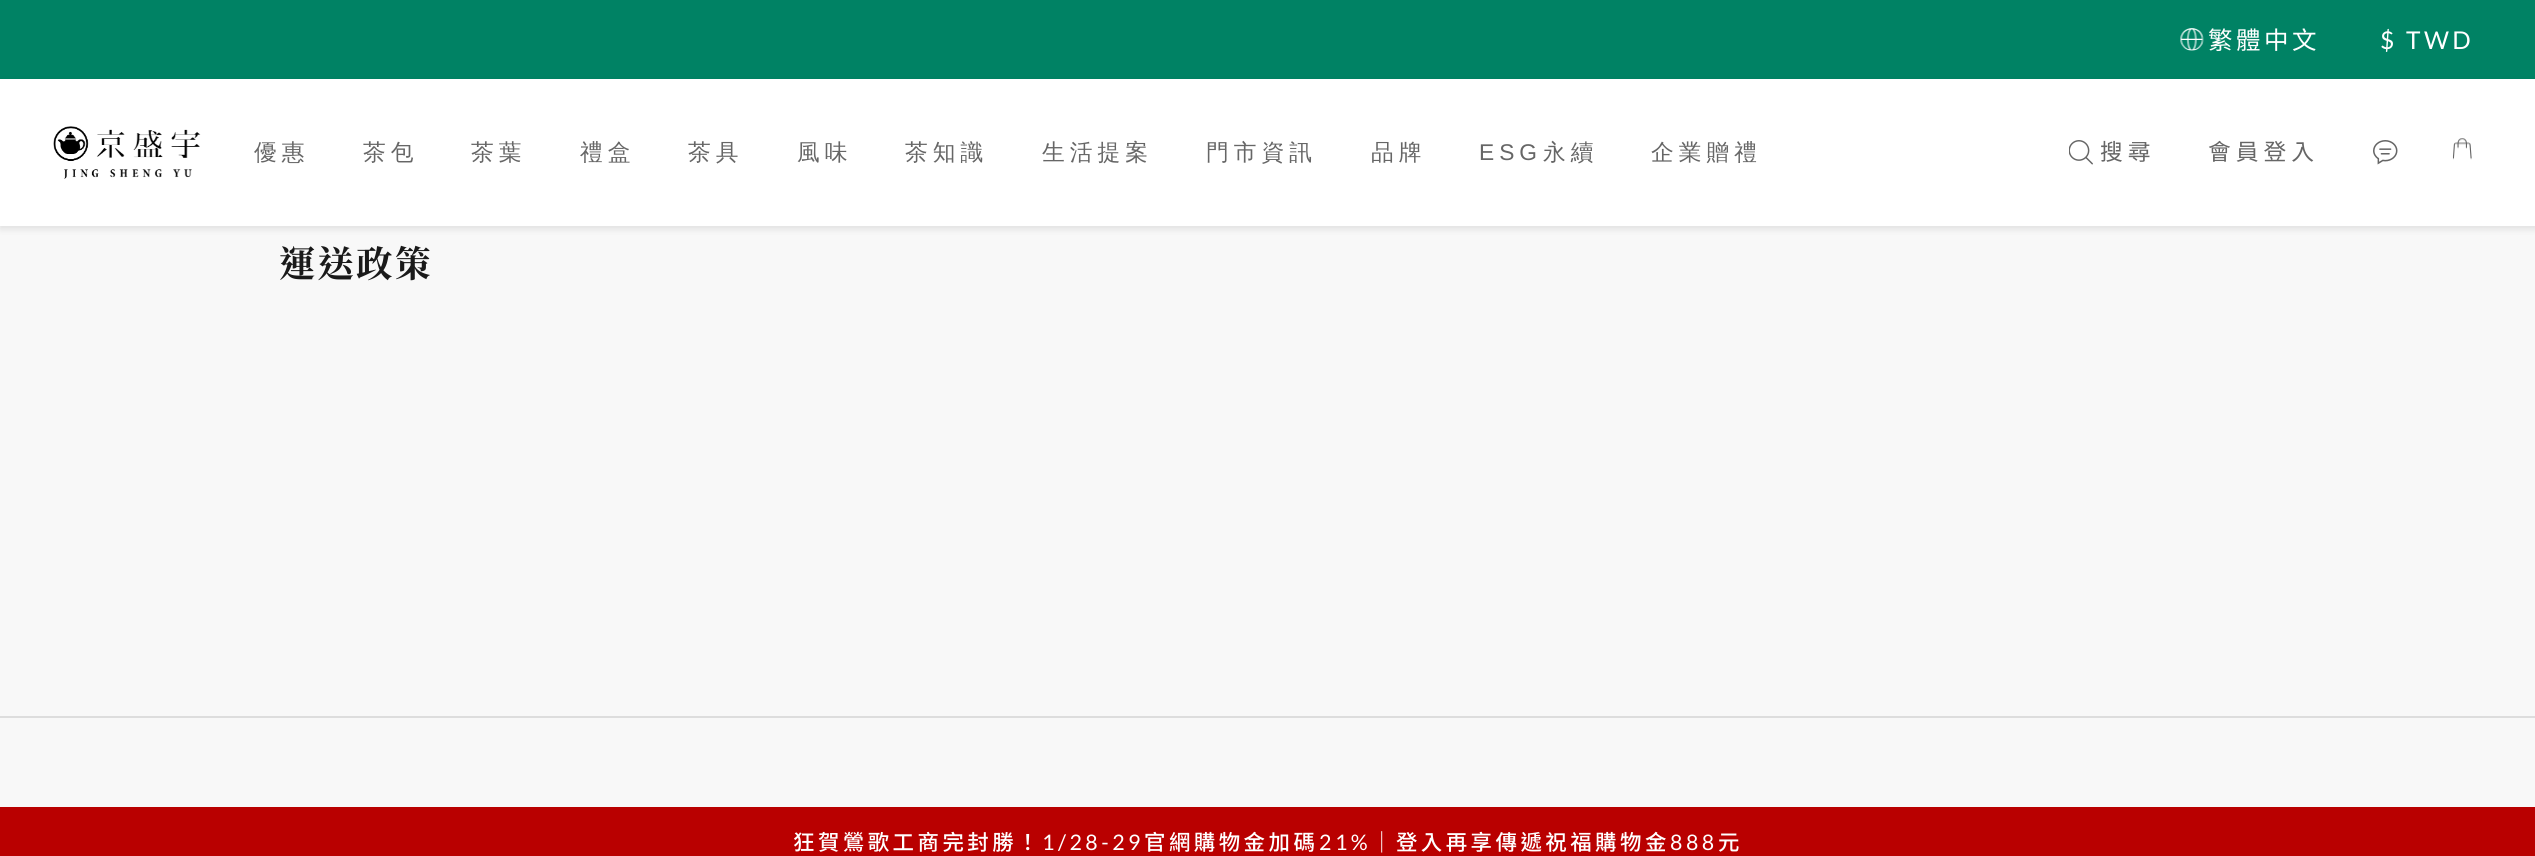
#include <cairo/cairo.h>
#include <math.h>
#include <stddef.h>

typedef struct { double x, y; const char *s; } line_t;
static cairo_t *cr;

static void rgb(unsigned color)
{
	cairo_set_source_rgb(cr, (color >> 16) / 255.0, (color >> 8 & 255) / 255.0, (color & 255) / 255.0);
}

static void tracked(double x, double y, const char *s, double letter, double word)
{
	cairo_move_to(cr, x, y);
	while (*s) {
		char ch[5] = {0};
		int n = 0;
		do ch[n++] = *s++; while ((*s & 0xC0) == 0x80);
		cairo_show_text(cr, ch);
		cairo_rel_move_to(cr, letter + word * (*ch == ' '), 0);
	}
}

static void rrect(double x, double y, double w, double h, double r)
{
	cairo_new_sub_path(cr);
	cairo_arc(cr, x + w - r, y + h - r, r, 0, M_PI / 2);
	cairo_arc(cr, x + r, y + h - r, r, M_PI / 2, M_PI);
	cairo_arc(cr, x + r, y + r, r, M_PI, 1.5 * M_PI);
	cairo_arc(cr, x + w - r, y + r, r, 1.5 * M_PI, 2 * M_PI);
	cairo_close_path(cr);
}

static void soft_shadow(double x, double y, double w, double h, double r, double blur, double alpha)
{
	cairo_push_group_with_content(cr, CAIRO_CONTENT_ALPHA);
	cairo_set_operator(cr, CAIRO_OPERATOR_SOURCE);
	for (int i = 15; i >= -15 && fmin(w, h) + blur * i / 3 > 0; i -= 2) {
		double e = blur * i / 6;
		cairo_set_source_rgba(cr, 0, 0, 0, alpha * erfc((i - 1) / 8.5) / 2);
		rrect(x - e, y - e, w + 2 * e, h + 2 * e, fmax(0, fmin(r + e + blur * .6, fmin(w, h) / 2 + e)));
		cairo_fill(cr);
	}
	cairo_pattern_t *soft = cairo_pop_group(cr);
	cairo_mask(cr, soft);
	cairo_pattern_destroy(soft);
}

static void image(const char *path, double x, double y, double w, double h)
{
	cairo_surface_t *image = cairo_image_surface_create_from_png(path);
	cairo_save(cr);
	cairo_set_source_surface(cr, image, x, y);
	cairo_rectangle(cr, x, y, w, h);
	cairo_fill(cr);
	cairo_restore(cr);
	cairo_surface_destroy(image);
}

int main(void) {
	cairo_surface_t *surface = cairo_image_surface_create(CAIRO_FORMAT_RGB24, 2535, 856);
	cr = cairo_create(surface);
	cairo_font_options_t *options = cairo_font_options_create();
	cairo_font_options_set_hint_metrics(options, CAIRO_HINT_METRICS_OFF);
	cairo_font_options_set_hint_style(options, CAIRO_HINT_STYLE_NONE);
	cairo_set_font_options(cr, options);
	cairo_set_miter_limit(cr, 4);
	rgb(0xf8f8f8);
	cairo_paint(cr);
	rgb(0x008264);
	cairo_rectangle(cr, 0, 0, 2535, 79);
	cairo_fill(cr);
	image("img/1.png", 2180, 28, 24, 23);
	rgb(0x000000);
	soft_shadow(0, 82, 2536, 147, 0, 3.5, 0.1);
	rgb(0xffffff);
	cairo_rectangle(cr, 0, 79, 2535, 147);
	cairo_fill(cr);
	image("img/2.png", 53, 126, 148, 53);
	image("img/3.png", 2069, 140, 24, 25);
	image("img/4.png", 2373, 140, 25, 25);
	image("img/5.png", 2452, 138, 20, 22);
	rgb(0xdddddd);
	cairo_rectangle(cr, 0, 716, 2535, 2);
	cairo_fill(cr);
	rgb(0xb90000);
	cairo_rectangle(cr, 0, 807, 2535, 49);
	cairo_fill(cr);
	cairo_select_font_face(cr, "Noto Sans TC", CAIRO_FONT_SLANT_NORMAL, CAIRO_FONT_WEIGHT_NORMAL);
	cairo_set_font_size(cr, 24.5);
	rgb(0xffffff);
	tracked(2208, 49, "繁體中文", 3.5, 0);
	cairo_select_font_face(cr, "Lato", CAIRO_FONT_SLANT_NORMAL, CAIRO_FONT_WEIGHT_NORMAL);
	tracked(2380, 49, "$ TWD", 3.5, 0);
	cairo_select_font_face(cr, "WenQuanYi Zen Hei Medium", CAIRO_FONT_SLANT_NORMAL, CAIRO_FONT_WEIGHT_NORMAL);
	cairo_set_font_size(cr, 22.75);
	rgb(0x666666);
	{
		static const line_t items[] = {
			{254, 160, "優惠"},
			{363, 160, "茶包"},
			{471, 160, "茶葉"},
			{580, 160, "禮盒"},
			{688, 160, "茶具"},
			{797, 160, "風味"},
			{905, 160, "茶知識"},
			{1042, 160, "生活提案"},
			{1206, 160, "門市資訊"},
			{1371, 160, "品牌"},
		};
		for (size_t i = 0; i < sizeof items / sizeof *items; i++) {
			tracked(items[i].x, items[i].y, items[i].s, 5, 0);
		}
	}
	cairo_select_font_face(cr, "Liberation Sans", CAIRO_FONT_SLANT_NORMAL, CAIRO_FONT_WEIGHT_NORMAL);
	tracked(1479, 160, "ESG", 5, 0);
	cairo_select_font_face(cr, "WenQuanYi Zen Hei Medium", CAIRO_FONT_SLANT_NORMAL, CAIRO_FONT_WEIGHT_NORMAL);
	tracked(1543, 160, "永續", 5, 0);
	tracked(1651, 160, "企業贈禮", 5, 0);
	cairo_select_font_face(cr, "Noto Sans TC", CAIRO_FONT_SLANT_NORMAL, CAIRO_FONT_WEIGHT_NORMAL);
	tracked(2100, 160, "搜尋", 5, 0);
	tracked(2208, 160, "會員登入", 5, 0);
	cairo_select_font_face(cr, "Noto Serif TC", CAIRO_FONT_SLANT_NORMAL, CAIRO_FONT_WEIGHT_BOLD);
	cairo_set_font_size(cr, 36.5);
	rgb(0x1a1a1a);
	tracked(279, 277, "運送政策", 2, 0);
	cairo_select_font_face(cr, "Noto Sans TC Medium", CAIRO_FONT_SLANT_NORMAL, CAIRO_FONT_WEIGHT_NORMAL);
	cairo_set_font_size(cr, 21.4);
	rgb(0xffffff);
	tracked(793, 850, "狂賀鶯歌工商完封勝！", 3.5, 0);
	cairo_select_font_face(cr, "Lato", CAIRO_FONT_SLANT_NORMAL, CAIRO_FONT_WEIGHT_NORMAL);
	tracked(1042, 850, "1/28-29", 3.5, 0);
	cairo_select_font_face(cr, "Noto Sans TC Medium", CAIRO_FONT_SLANT_NORMAL, CAIRO_FONT_WEIGHT_NORMAL);
	tracked(1144, 850, "官網購物金加碼", 3.5, 0);
	cairo_select_font_face(cr, "Lato", CAIRO_FONT_SLANT_NORMAL, CAIRO_FONT_WEIGHT_NORMAL);
	tracked(1319, 850, "21%", 3.5, 0);
	cairo_select_font_face(cr, "Noto Sans TC Medium", CAIRO_FONT_SLANT_NORMAL, CAIRO_FONT_WEIGHT_NORMAL);
	tracked(1371, 850, "｜登入再享傳遞祝福購物金", 3.5, 0);
	cairo_select_font_face(cr, "Lato", CAIRO_FONT_SLANT_NORMAL, CAIRO_FONT_WEIGHT_NORMAL);
	tracked(1670, 850, "888", 3.5, 0);
	cairo_select_font_face(cr, "Noto Sans TC Medium", CAIRO_FONT_SLANT_NORMAL, CAIRO_FONT_WEIGHT_NORMAL);
	tracked(1718, 850, "元", 3.5, 0);
	cairo_surface_write_to_png(surface, "page.png");
	cairo_font_options_destroy(options);
	cairo_destroy(cr);
	cairo_surface_destroy(surface);
	return 0;
}
